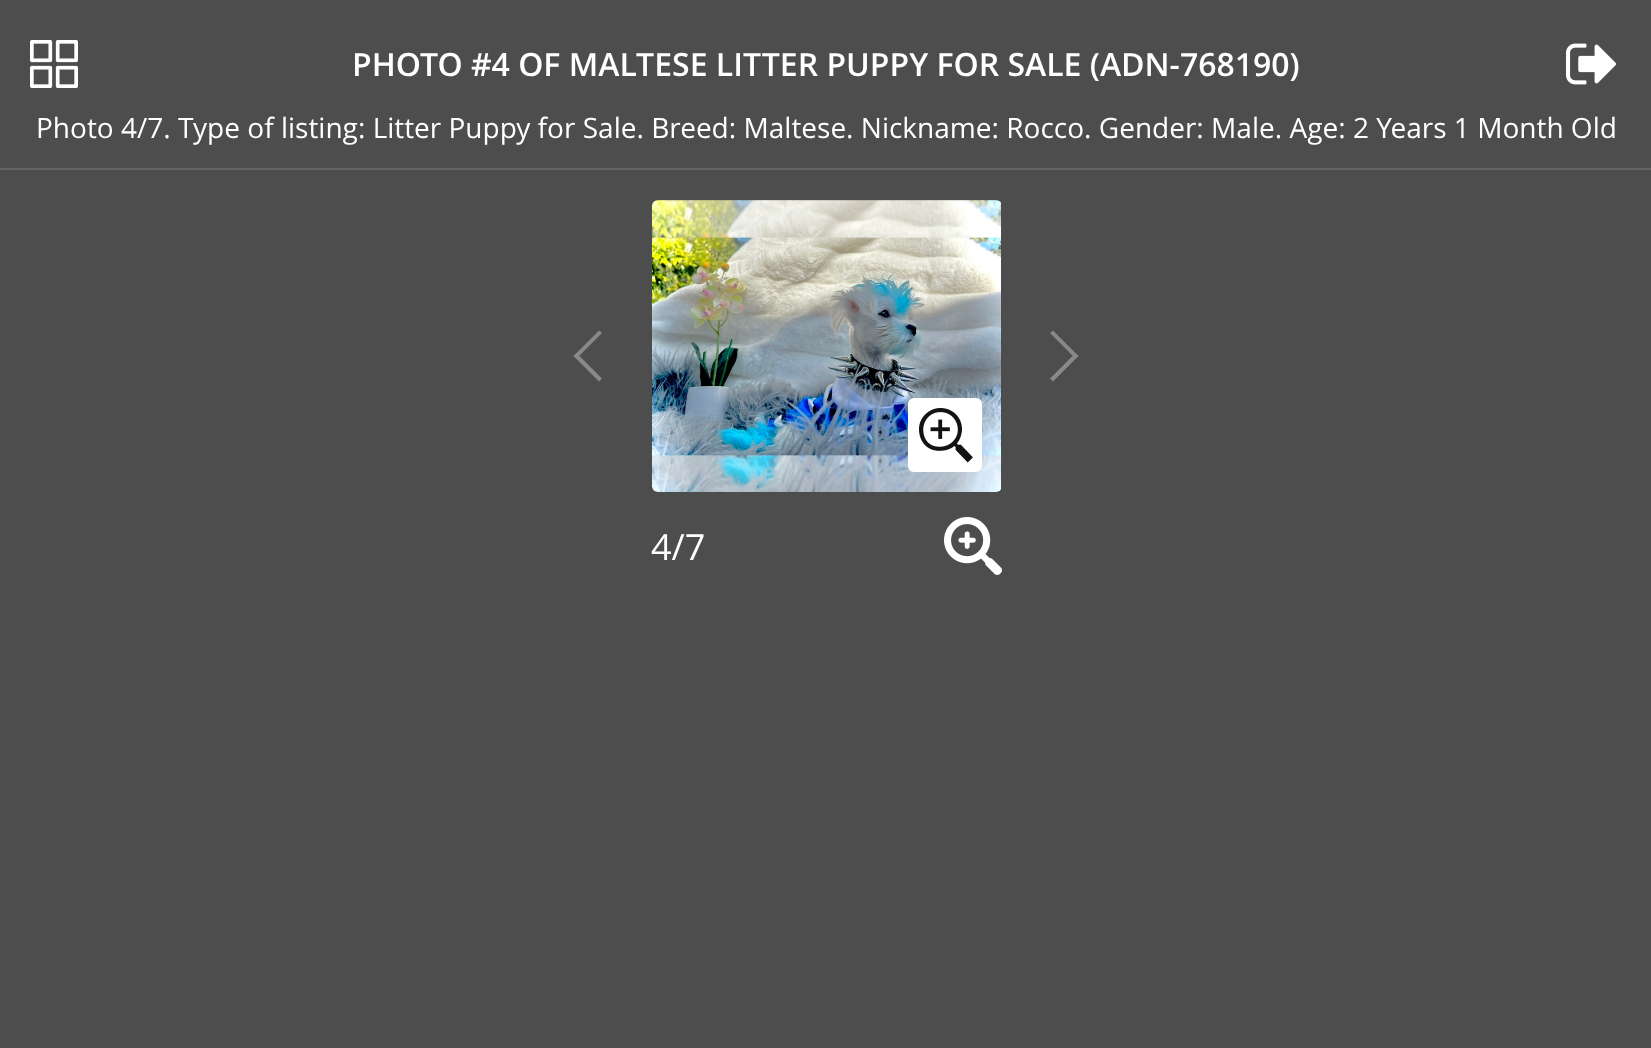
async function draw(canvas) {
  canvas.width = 1651
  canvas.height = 1048
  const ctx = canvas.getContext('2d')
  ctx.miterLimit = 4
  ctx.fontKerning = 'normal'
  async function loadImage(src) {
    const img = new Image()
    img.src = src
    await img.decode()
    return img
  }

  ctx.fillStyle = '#4d4d4d'
  ctx.fillRect(0, 0, 1651, 1048)
  ctx.fillStyle = '#636363'
  ctx.fillRect(0, 168, 1651, 2)
  ctx.drawImage(await loadImage('image0.png'), 30, 40, 48, 48)
  ctx.font = '600 32px Open Sans'
  ctx.fillStyle = '#fff'
  ctx.fillText('PHOTO #4 OF MALTESE LITTER PUPPY FOR SALE (ADN-768190)', 352, 76)
  ctx.drawImage(await loadImage('image1.png'), 1566, 43, 50, 42)
  ctx.font = '28px Open Sans'
  ctx.fillText('Photo 4/7. Type of listing: Litter Puppy for Sale. Breed: Maltese. Nickname: Rocco. Gender: Male. Age: 2 Years 1 Month Old', 36, 138)
  ctx.fillStyle = '#898989'
  ctx.beginPath()
  ctx.moveTo(599, 381.5)
  ctx.lineTo(573.5, 356)
  ctx.lineTo(576.5, 353)
  ctx.lineTo(602, 378.5)
  ctx.closePath()
  ctx.fill()
  ctx.beginPath()
  ctx.moveTo(576.5, 358.5)
  ctx.lineTo(573.5, 356)
  ctx.lineTo(599, 330.5)
  ctx.lineTo(602, 333)
  ctx.closePath()
  ctx.fill()
  ctx.drawImage(await loadImage('image2.png'), 652, 200, 349, 292)
  ctx.fillStyle = '#fff'
  ctx.beginPath()
  ctx.roundRect(908, 398, 74, 74, 6)
  ctx.fill()
  ctx.drawImage(await loadImage('image3.png'), 919, 408, 54, 55)
  ctx.fillStyle = '#898989'
  ctx.beginPath()
  ctx.moveTo(1053, 330.5)
  ctx.lineTo(1078.5, 356)
  ctx.lineTo(1075.5, 358.5)
  ctx.lineTo(1050, 333)
  ctx.closePath()
  ctx.fill()
  ctx.beginPath()
  ctx.moveTo(1075.5, 353)
  ctx.lineTo(1078.5, 356)
  ctx.lineTo(1053, 381.5)
  ctx.lineTo(1050, 378.5)
  ctx.closePath()
  ctx.fill()
  ctx.font = '36px Open Sans'
  ctx.fillStyle = '#fff'
  ctx.fillText('4/7', 651, 560)
  ctx.drawImage(await loadImage('image4.png'), 944, 517, 58, 58)
}

draw(document.querySelector('canvas'))
